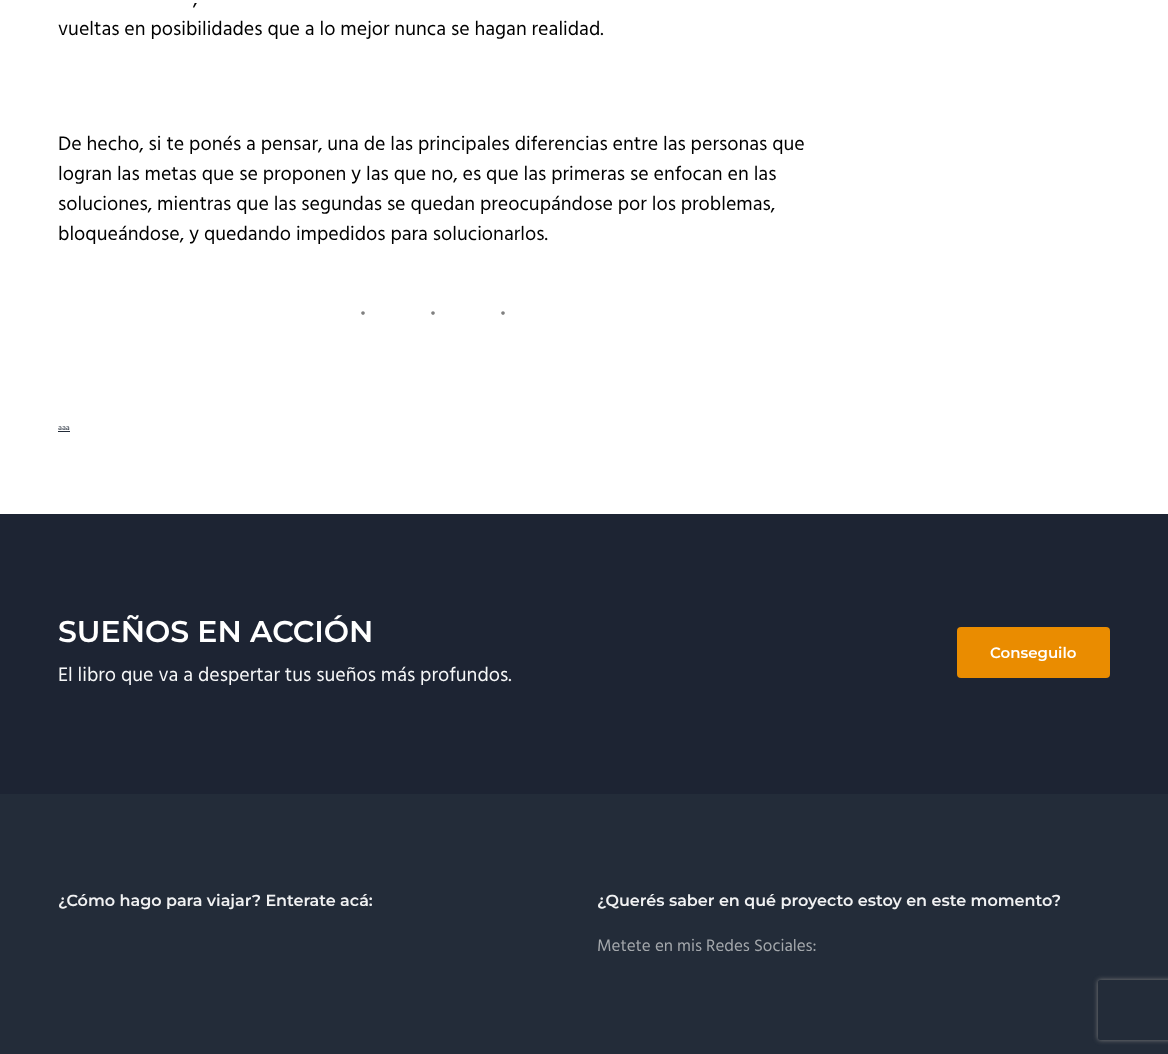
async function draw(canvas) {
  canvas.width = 1168
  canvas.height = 1054
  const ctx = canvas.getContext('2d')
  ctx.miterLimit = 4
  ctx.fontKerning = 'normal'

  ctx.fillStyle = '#fff'
  ctx.fillRect(0, 0, 1168, 1054)
  ctx.font = '20px Hind'
  ctx.fillStyle = '#000'
  ctx.fillText(',', 193, 5)
  ctx.fillText('vueltas en posibilidades que a lo mejor nunca se hagan realidad.', 58, 35)
  ctx.fillText('De hecho, si te ponés a pensar, una de las principales diferencias entre las personas que', 58, 150)
  ctx.fillText('logran las metas que se proponen y las que no, es que las primeras se enfocan en las', 58, 180)
  ctx.fillText('soluciones, mientras que las segundas se quedan preocupándose por los problemas,', 58, 210)
  ctx.fillText('bloqueándose, y quedando impedidos para solucionarlos.', 58, 240)
  ctx.letterSpacing = '60px'
  ctx.font = '30px Liberation Serif'
  ctx.fillStyle = '#808080'
  ctx.fillText('···', 358, 323)
  ctx.letterSpacing = '0px'
  ctx.font = '8px Hind'
  ctx.fillStyle = '#232c39'
  ctx.fillText('aaa', 58, 430)
  ctx.fillRect(58, 431, 12, 1)
  ctx.fillRect(0, 794, 1168, 260)
  ctx.fillStyle = '#1d2433'
  ctx.fillRect(0, 514, 1168, 280)
  ctx.font = '100 30px Montserrat'
  ctx.fillStyle = '#fff'
  ctx.fillText('SUEÑOS EN ACCIÓN', 58, 642)
  ctx.font = '20px Hind'
  ctx.fillStyle = '#f6f7f8'
  ctx.fillText('El libro que va a despertar tus sueños más profundos.', 58, 681)
  ctx.fillStyle = '#ea8c00'
  ctx.beginPath()
  ctx.roundRect(957, 627, 153, 51, 4)
  ctx.fill()
  ctx.font = '100 15px Montserrat'
  ctx.fillStyle = '#fff'
  ctx.fillText('Conseguilo', 990, 658)
  ctx.font = '100 16px Montserrat'
  ctx.fillStyle = '#f0f1f2'
  ctx.fillText('¿Cómo hago para viajar? Enterate acá:', 58, 906)
  ctx.fillText('¿Querés saber en qué proyecto estoy en este momento?', 597, 906)
  ctx.font = '17px Hind'
  ctx.fillStyle = '#a4a8ac'
  ctx.fillText('Metete en mis Redes Sociales:', 597, 951)
  ctx.save()
  ctx.beginPath()
  ctx.moveTo(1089, 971)
  ctx.lineTo(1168, 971)
  ctx.lineTo(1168, 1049)
  ctx.lineTo(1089, 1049)
  ctx.closePath()
  ctx.moveTo(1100, 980)
  ctx.lineTo(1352, 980)
  ctx.bezierCurveTo(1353, 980, 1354, 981, 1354, 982)
  ctx.lineTo(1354, 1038)
  ctx.bezierCurveTo(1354, 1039, 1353, 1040, 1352, 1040)
  ctx.lineTo(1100, 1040)
  ctx.bezierCurveTo(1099, 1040, 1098, 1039, 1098, 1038)
  ctx.lineTo(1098, 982)
  ctx.bezierCurveTo(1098, 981, 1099, 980, 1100, 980)
  ctx.closePath()
  ctx.clip('evenodd')
  ctx.fillStyle = '#808080'
  ctx.filter = 'blur(2.5px)'
  ctx.beginPath()
  ctx.roundRect(1098, 980, 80, 60, 2)
  ctx.fill()
  ctx.filter = 'none'
  ctx.restore()
}

draw(document.querySelector('canvas'))
